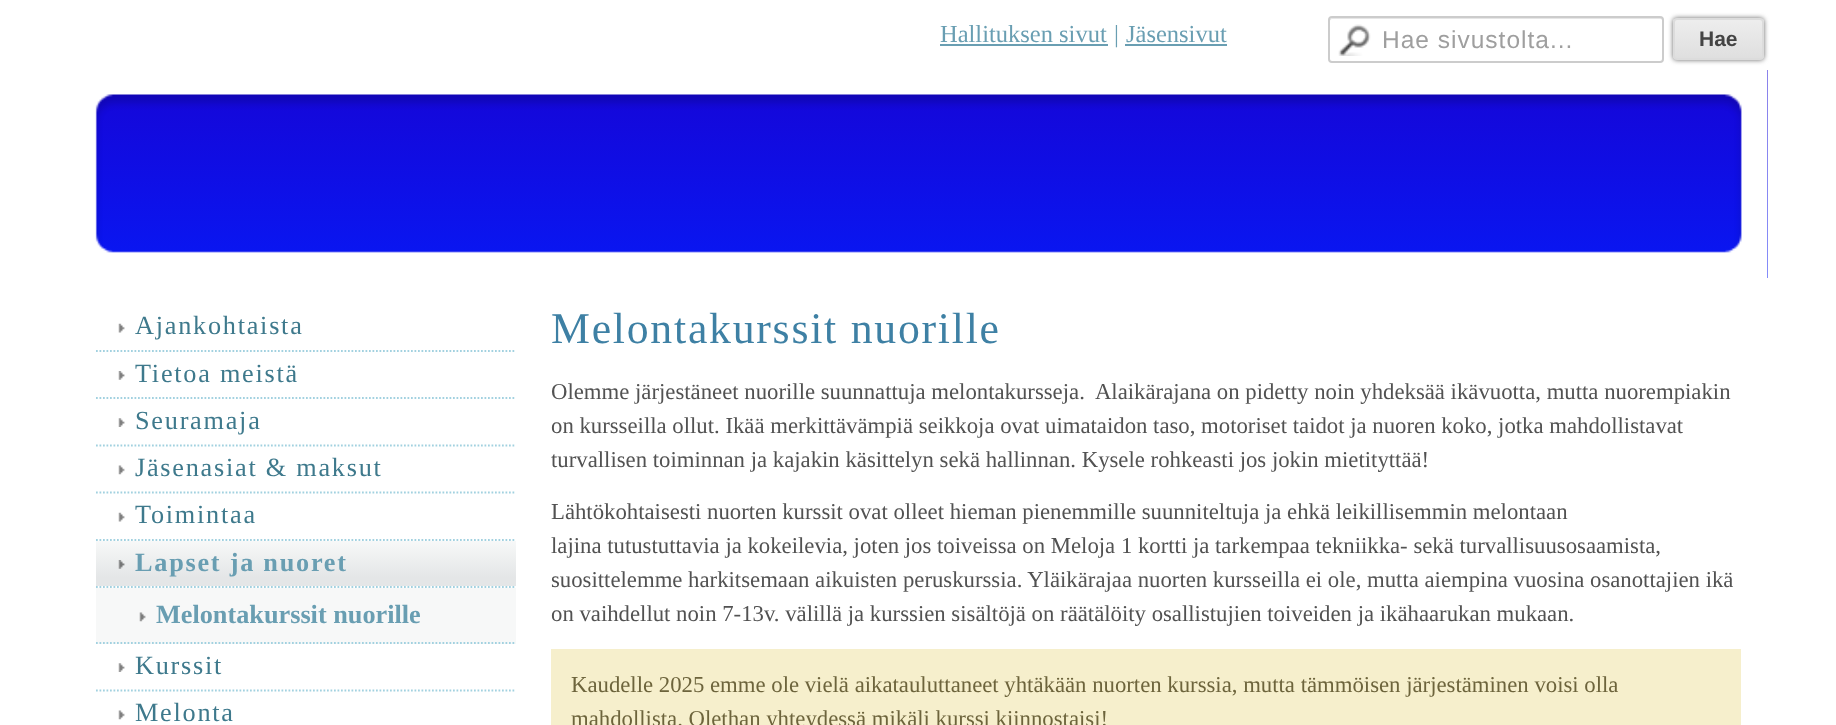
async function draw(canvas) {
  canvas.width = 1836
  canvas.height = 725
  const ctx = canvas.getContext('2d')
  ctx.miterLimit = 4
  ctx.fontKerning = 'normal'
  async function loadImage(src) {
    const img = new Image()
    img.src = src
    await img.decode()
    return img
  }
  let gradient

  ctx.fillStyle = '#fff'
  ctx.fillRect(0, 0, 1836, 725)
  ctx.font = '24.5px Liberation Serif'
  ctx.fillStyle = '#699eb2'
  ctx.fillText('Hallituksen sivut', 940, 42)
  ctx.fillRect(940, 44, 168, 2)
  ctx.fillText('|', 1114, 42)
  ctx.fillText('Jäsensivut', 1126, 42)
  ctx.fillRect(1125, 44, 102, 2)
  ctx.drawImage(await loadImage('image0.png'), 1338, 24, 33, 32)
  ctx.fillStyle = '#e6e6e6'
  ctx.beginPath()
  ctx.moveTo(1332, 19)
  ctx.lineTo(1661, 19)
  ctx.bezierCurveTo(1662, 19, 1662, 20, 1662, 21)
  ctx.lineTo(1662, 61)
  ctx.lineTo(1663, 60)
  ctx.lineTo(1663, 20)
  ctx.lineTo(1662, 18)
  ctx.lineTo(1332, 18)
  ctx.lineTo(1330, 19)
  ctx.lineTo(1330, 21)
  ctx.bezierCurveTo(1330, 20, 1331, 19, 1332, 19)
  ctx.closePath()
  ctx.fill()
  ctx.beginPath()
  ctx.roundRect(1329, 17, 334, 45, 3)
  ctx.strokeStyle = '#ccc'
  ctx.lineWidth = 2
  ctx.stroke()
  ctx.letterSpacing = '1px'
  ctx.font = '24.5px Liberation Sans'
  ctx.fillStyle = '#9f9f9f'
  ctx.fillText('Hae sivustolta...', 1382, 48)
  ctx.fillStyle = '#666'
  ctx.filter = 'blur(2.5px)'
  ctx.beginPath()
  ctx.roundRect(1673, 18, 91, 42, 4)
  ctx.fill()
  ctx.filter = 'none'
  ctx.save()
  ctx.beginPath()
  ctx.roundRect(1673, 18, 91, 42, 4)
  ctx.clip()
  gradient = ctx.createLinearGradient(1675, 19, 1675, 58)
  gradient.addColorStop(0.05, '#ededed')
  gradient.addColorStop(1, '#dfdfdf')
  ctx.fillStyle = gradient
  ctx.fillRect(1673, 19, 91, 39)
  ctx.restore()
  ctx.beginPath()
  ctx.roundRect(1674, 19, 89, 40, 3)
  ctx.strokeStyle = '#dcdcdc'
  ctx.stroke()
  ctx.letterSpacing = '0px'
  ctx.font = 'bold 21px Liberation Sans'
  ctx.fillStyle = '#444'
  ctx.fillText('Hae', 1699, 46)
  gradient = ctx.createLinearGradient(919, 70, 919, 278)
  gradient.addColorStop(0, '#1605d6')
  gradient.addColorStop(1, '#0818f4')
  gradient.addColorStop(1, '#0818f4')
  ctx.fillStyle = gradient
  ctx.fillRect(95, 70, 1673, 208)
  ctx.drawImage(await loadImage('image1.png'), 70, 70, 1698, 208)
  ctx.beginPath()
  ctx.moveTo(96, 351)
  ctx.lineTo(516, 351)
  ctx.strokeStyle = '#a2d1e0'
  ctx.lineWidth = 1.8
  ctx.setLineDash([1.75, 1.75])
  ctx.stroke()
  ctx.drawImage(await loadImage('image2.png'), 118, 323, 7, 10)
  ctx.letterSpacing = '1.75px'
  ctx.font = '26.25px Liberation Serif'
  ctx.fillStyle = '#3e798c'
  ctx.fillText('Ajankohtaista', 135, 334)
  ctx.beginPath()
  ctx.moveTo(96, 398)
  ctx.lineTo(516, 398)
  ctx.stroke()
  ctx.drawImage(await loadImage('image3.png'), 118, 371, 7, 9)
  ctx.fillText('Tietoa meistä', 135, 382)
  ctx.beginPath()
  ctx.moveTo(96, 445.5)
  ctx.lineTo(516, 445.5)
  ctx.stroke()
  ctx.drawImage(await loadImage('image4.png'), 118, 418, 7, 9)
  ctx.fillText('Seuramaja', 135, 429)
  ctx.beginPath()
  ctx.moveTo(96, 492.5)
  ctx.lineTo(516, 492.5)
  ctx.stroke()
  ctx.drawImage(await loadImage('image5.png'), 118, 465, 7, 10)
  ctx.fillText('Jäsenasiat & maksut', 135, 476)
  ctx.beginPath()
  ctx.moveTo(96, 540)
  ctx.lineTo(516, 540)
  ctx.stroke()
  ctx.drawImage(await loadImage('image2.png'), 118, 512, 7, 10)
  ctx.fillText('Toimintaa', 135, 523)
  gradient = ctx.createLinearGradient(306, 541, 306, 586)
  gradient.addColorStop(0, '#f7f8f8')
  gradient.addColorStop(0.81, '#e4e6e7')
  gradient.addColorStop(1, '#e4e6e7')
  ctx.fillStyle = gradient
  ctx.fillRect(96, 541, 420, 45)
  ctx.beginPath()
  ctx.moveTo(96, 587)
  ctx.lineTo(516, 587)
  ctx.stroke()
  ctx.drawImage(await loadImage('image6.png'), 118, 560, 7, 9)
  ctx.font = 'bold 26.25px Liberation Serif'
  ctx.fillStyle = '#699eb2'
  ctx.fillText('Lapset ja nuoret', 135, 571)
  ctx.fillStyle = '#f7f8f8'
  ctx.fillRect(96, 588, 420, 56)
  ctx.beginPath()
  ctx.moveTo(96, 643)
  ctx.lineTo(516, 643)
  ctx.stroke()
  ctx.drawImage(await loadImage('image7.png'), 139, 612, 7, 10)
  ctx.letterSpacing = '0px'
  ctx.fillStyle = '#699eb2'
  ctx.fillText('Melontakurssit nuorille', 156, 623)
  ctx.beginPath()
  ctx.moveTo(96, 690.5)
  ctx.lineTo(516, 690.5)
  ctx.stroke()
  ctx.drawImage(await loadImage('image4.png'), 118, 663, 7, 9)
  ctx.letterSpacing = '1.75px'
  ctx.font = '26.25px Liberation Serif'
  ctx.fillStyle = '#3e798c'
  ctx.fillText('Kurssit', 135, 674)
  ctx.drawImage(await loadImage('image5.png'), 118, 710, 7, 10)
  ctx.fillText('Melonta', 135, 721)
  ctx.font = '43.75px Liberation Serif'
  ctx.fillStyle = '#3e80a4'
  ctx.fillText('Melontakurssit nuorille', 551, 343)
  ctx.letterSpacing = '0px'
  ctx.font = '22.75px Liberation Serif'
  ctx.fillStyle = '#525252'
  ctx.fillText('Olemme järjestäneet nuorille suunnattuja melontakursseja.  Alaikärajana on pidetty noin yhdeksää ikävuotta, mutta nuorempiakin', 551, 399)
  ctx.fillText('on kursseilla ollut. Ikää merkittävämpiä seikkoja ovat uimataidon taso, motoriset taidot ja nuoren koko, jotka mahdollistavat', 551, 433)
  ctx.fillText('turvallisen toiminnan ja kajakin käsittelyn sekä hallinnan. Kysele rohkeasti jos jokin mietityttää!', 551, 467)
  ctx.fillText('Lähtökohtaisesti nuorten kurssit ovat olleet hieman pienemmille suunniteltuja ja ehkä leikillisemmin melontaan', 551, 519)
  ctx.fillText('lajina tutustuttavia ja kokeilevia, joten jos toiveissa on Meloja 1 kortti ja tarkempaa tekniikka- sekä turvallisuusosaamista,', 551, 553)
  ctx.fillText('suosittelemme harkitsemaan aikuisten peruskurssia. Yläikärajaa nuorten kursseilla ei ole, mutta aiempina vuosina osanottajien ikä', 551, 587)
  ctx.fillText('on vaihdellut noin 7-13v. välillä ja kurssien sisältöjä on räätälöity osallistujien toiveiden ja ikähaarukan mukaan.', 551, 621)
  ctx.fillStyle = '#f6efcc'
  ctx.fillRect(551, 649, 1190, 76)
  ctx.fillStyle = '#6d643c'
  ctx.fillText('Kaudelle 2025 emme ole vielä aikatauluttaneet yhtäkään nuorten kurssia, mutta tämmöisen järjestäminen voisi olla', 571, 692)
  ctx.fillText('mahdollista. Olethan yhteydessä mikäli kurssi kiinnostaisi!', 571, 726)
}

draw(document.querySelector('canvas'))
